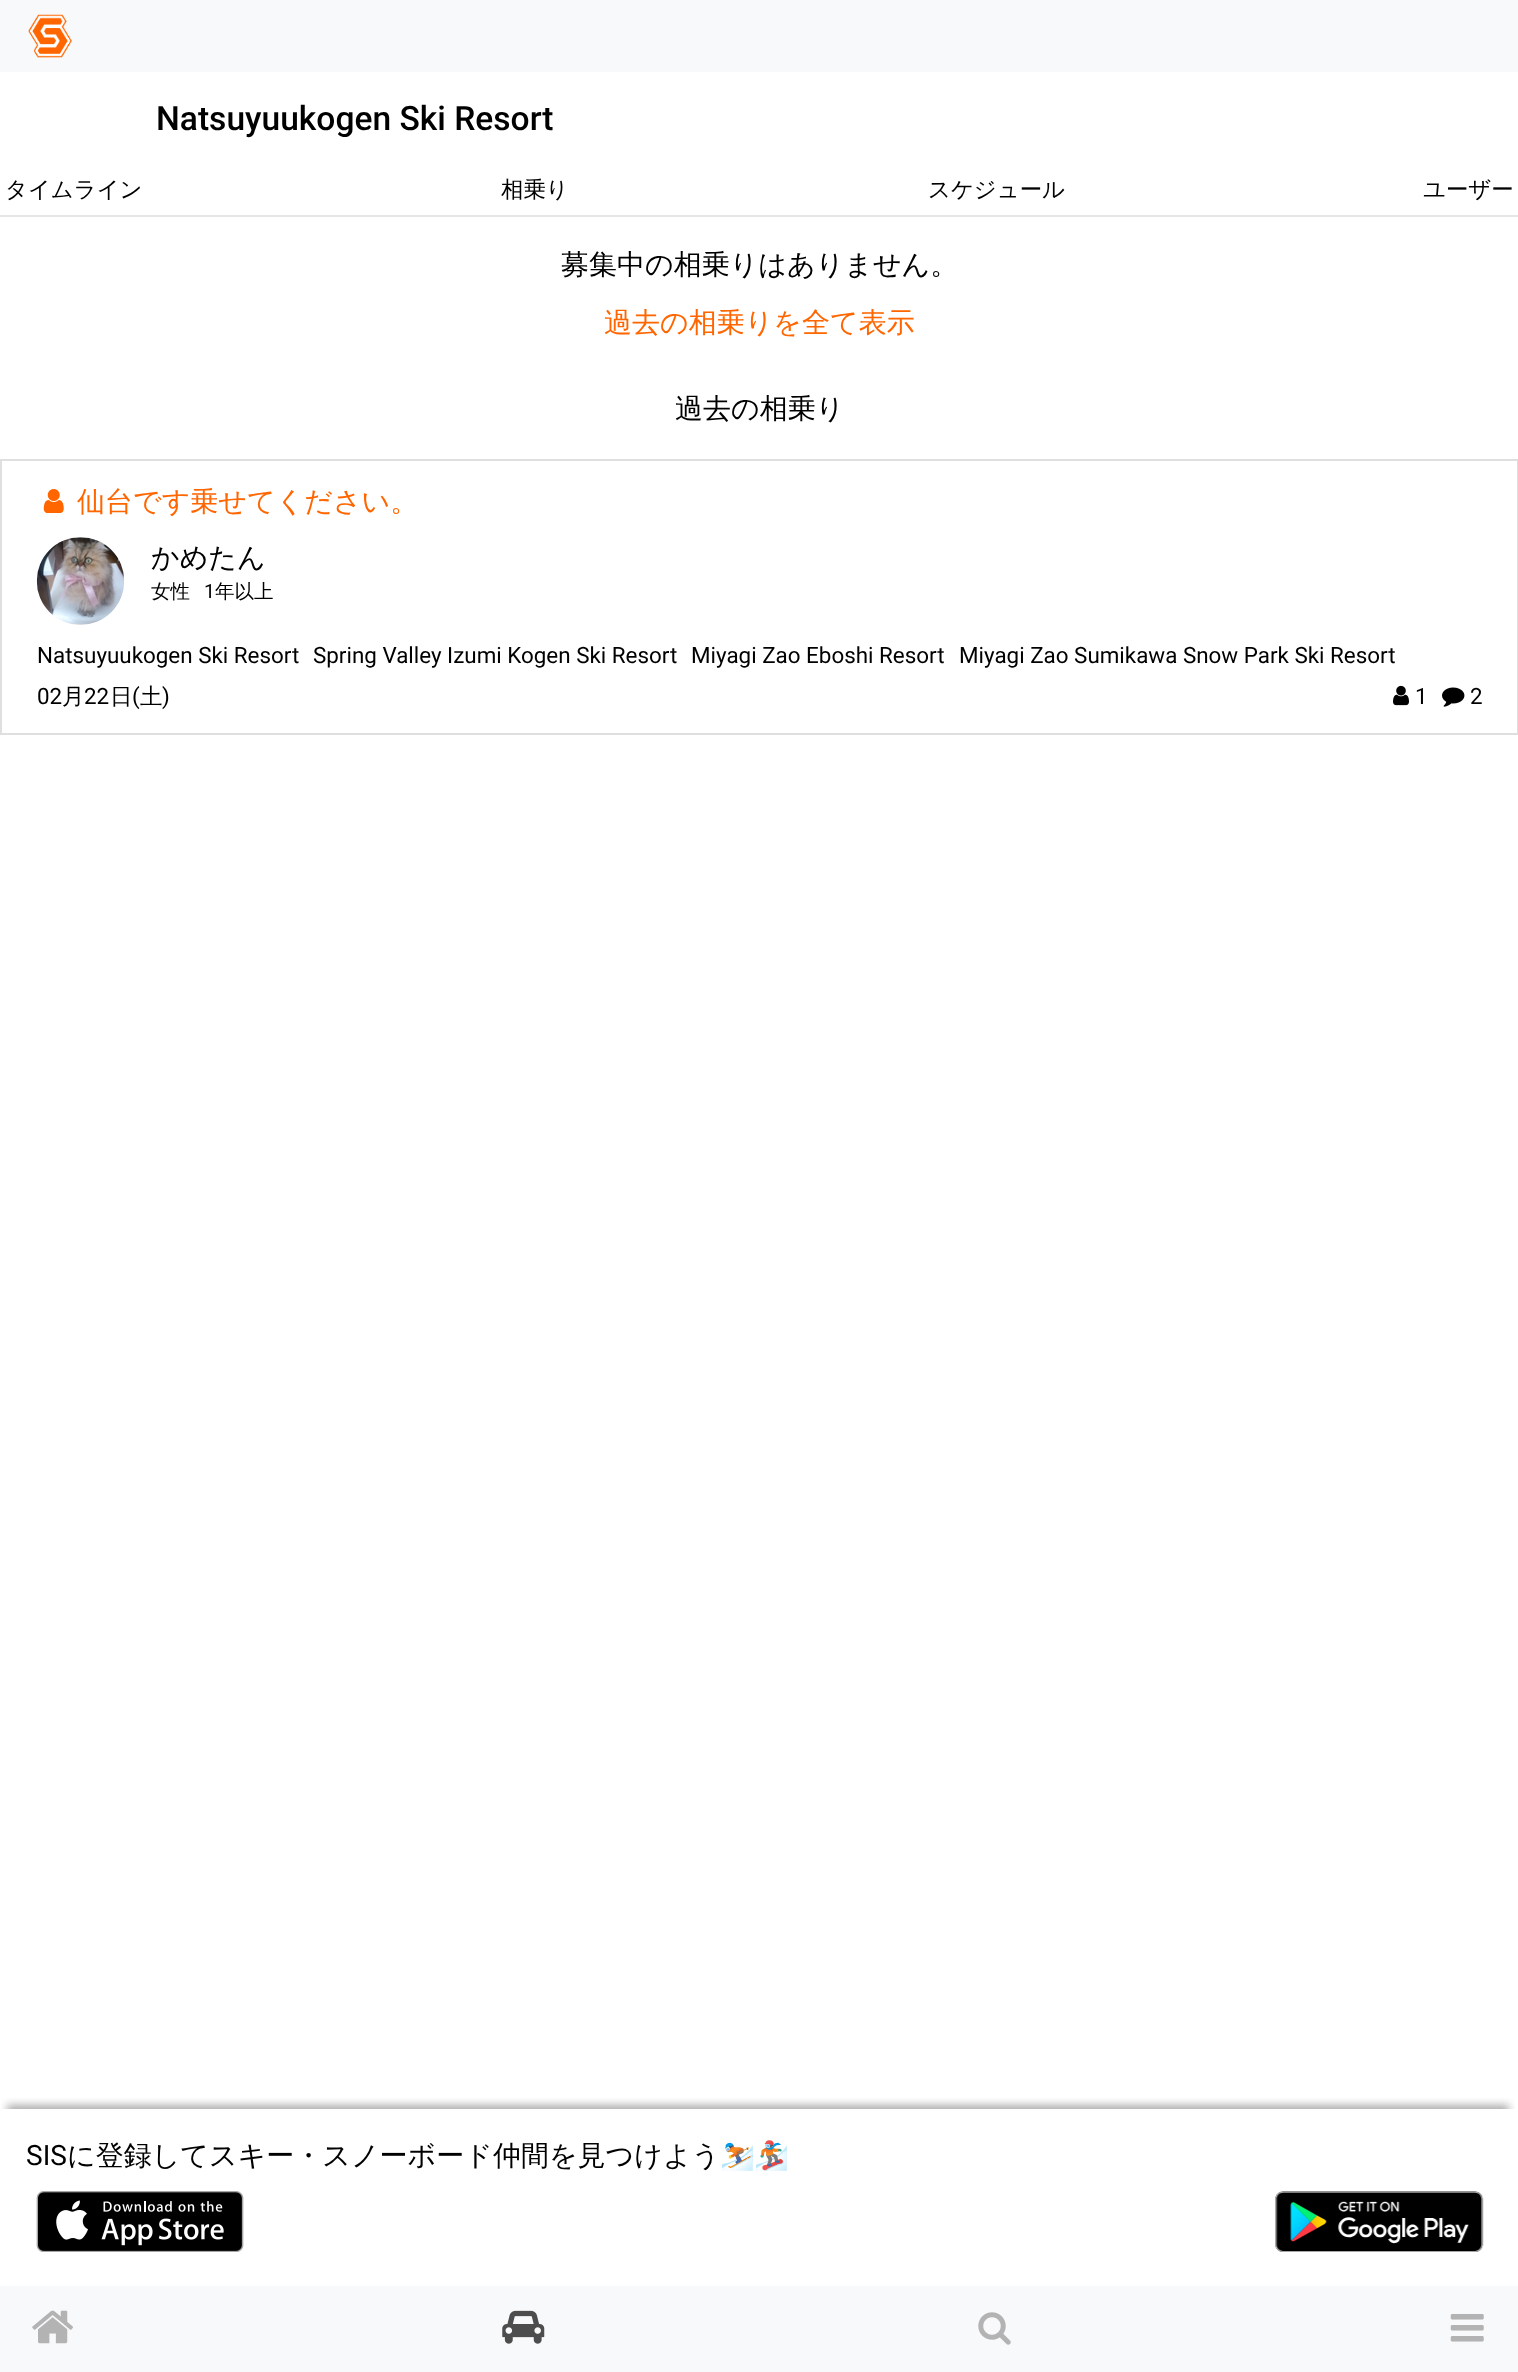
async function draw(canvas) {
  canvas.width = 1518
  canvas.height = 2372
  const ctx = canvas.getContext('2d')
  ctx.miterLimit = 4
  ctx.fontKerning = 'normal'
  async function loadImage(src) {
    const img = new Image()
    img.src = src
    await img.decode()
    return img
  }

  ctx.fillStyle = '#fff'
  ctx.fillRect(0, 0, 1518, 2372)
  ctx.fillStyle = '#f8f9fa'
  ctx.fillRect(0, 0, 1518, 72)
  ctx.drawImage(await loadImage('image0.png'), 28, 14, 44, 44)
  ctx.font = '500 33.6px Roboto'
  ctx.fillStyle = '#000'
  ctx.fillText('Natsuyuukogen Ski Resort', 156, 130)
  ctx.fillStyle = '#e6e6e6'
  ctx.fillRect(0, 215, 1518, 2)
  ctx.font = '500 22.4px WenQuanYi Zen Hei'
  ctx.fillStyle = '#000'
  ctx.fillText('タイムライン', 5, 197)
  ctx.fillText('相乗り', 501, 197)
  ctx.fillText('スケジュール', 928, 197)
  ctx.fillText('ユーザー', 1423, 197)
  ctx.font = '500 28px WenQuanYi Zen Hei'
  ctx.fillText('募集中の相乗りはありません。', 561, 274)
  ctx.fillStyle = '#f60'
  ctx.fillText('過去の相乗りを全て表示', 604, 332)
  ctx.fillStyle = '#000'
  ctx.fillText('過去の相乗り', 675, 418)
  ctx.strokeStyle = '#dfdfdf'
  ctx.lineWidth = 2
  ctx.strokeRect(1, 460, 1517, 274)
  ctx.drawImage(await loadImage('image1.png'), 43, 489, 21, 24)
  ctx.fillStyle = '#f60'
  ctx.fillText('仙台です乗せてください。', 77, 511)
  ctx.fillStyle = '#f0f0f0'
  ctx.beginPath()
  ctx.roundRect(37, 537, 87, 88, 43.5)
  ctx.fill()
  ctx.drawImage(await loadImage('image2.png'), 36, 537, 88, 88)
  ctx.fillStyle = '#000'
  ctx.fillText('かめたん', 151, 567)
  ctx.font = '500 19.5px WenQuanYi Zen Hei'
  ctx.fillText('女性', 151, 598)
  ctx.font = '19.5px Roboto'
  ctx.fillText('1', 204, 598)
  ctx.font = '500 19.5px WenQuanYi Zen Hei'
  ctx.fillText('年以上', 215, 598)
  ctx.font = '22.4px Roboto'
  ctx.fillText('Natsuyuukogen Ski Resort', 37, 663)
  ctx.fillText('Spring Valley Izumi Kogen Ski Resort', 313, 663)
  ctx.fillText('Miyagi Zao Eboshi Resort', 691, 663)
  ctx.fillText('Miyagi Zao Sumikawa Snow Park Ski Resort', 959, 663)
  ctx.fillText('02', 37, 704)
  ctx.font = '500 22.4px WenQuanYi Zen Hei'
  ctx.fillText('月', 62, 704)
  ctx.font = '22.4px Roboto'
  ctx.fillText('22', 84, 704)
  ctx.font = '500 22.4px WenQuanYi Zen Hei'
  ctx.fillText('日', 110, 704)
  ctx.font = '22.4px Roboto'
  ctx.fillText('(', 132, 704)
  ctx.font = '500 22.4px WenQuanYi Zen Hei'
  ctx.fillText('土', 140, 704)
  ctx.font = '22.4px Roboto'
  ctx.fillText(')', 162, 704)
  ctx.drawImage(await loadImage('image3.png'), 1393, 685, 16, 21)
  ctx.fillText('1', 1415, 704)
  ctx.drawImage(await loadImage('image4.png'), 1442, 687, 23, 20)
  ctx.fillText('2', 1470, 704)
  ctx.save()
  ctx.beginPath()
  ctx.rect(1, 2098, 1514, 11)
  ctx.clip()
  ctx.fillStyle = '#00000054'
  ctx.filter = 'blur(4.5px)'
  ctx.beginPath()
  ctx.rect(7, 2105, 1502, 167)
  ctx.fill()
  ctx.filter = 'none'
  ctx.restore()
  ctx.font = '28px Roboto'
  ctx.fillText('SIS', 26, 2165)
  ctx.font = '500 28px WenQuanYi Zen Hei'
  ctx.fillText('に登録してスキー・スノーボード仲間を見つけよう', 67, 2165)
  ctx.font = '28px Noto Color Emoji'
  ctx.fillText('⛷️🏂', 720, 2165)
  ctx.drawImage(await loadImage('image5.png'), 36, 2191, 208, 61)
  ctx.drawImage(await loadImage('image6.png'), 1275, 2191, 209, 61)
  ctx.fillStyle = '#f8f9fa'
  ctx.fillRect(0, 2286, 1518, 86)
  ctx.drawImage(await loadImage('image7.png'), 32, 2310, 41, 34)
  ctx.drawImage(await loadImage('image8.png'), 502, 2310, 43, 34)
  ctx.drawImage(await loadImage('image9.png'), 978, 2312, 33, 33)
  ctx.drawImage(await loadImage('image10.png'), 1450, 2314, 34, 28)
}

draw(document.querySelector('canvas'))
